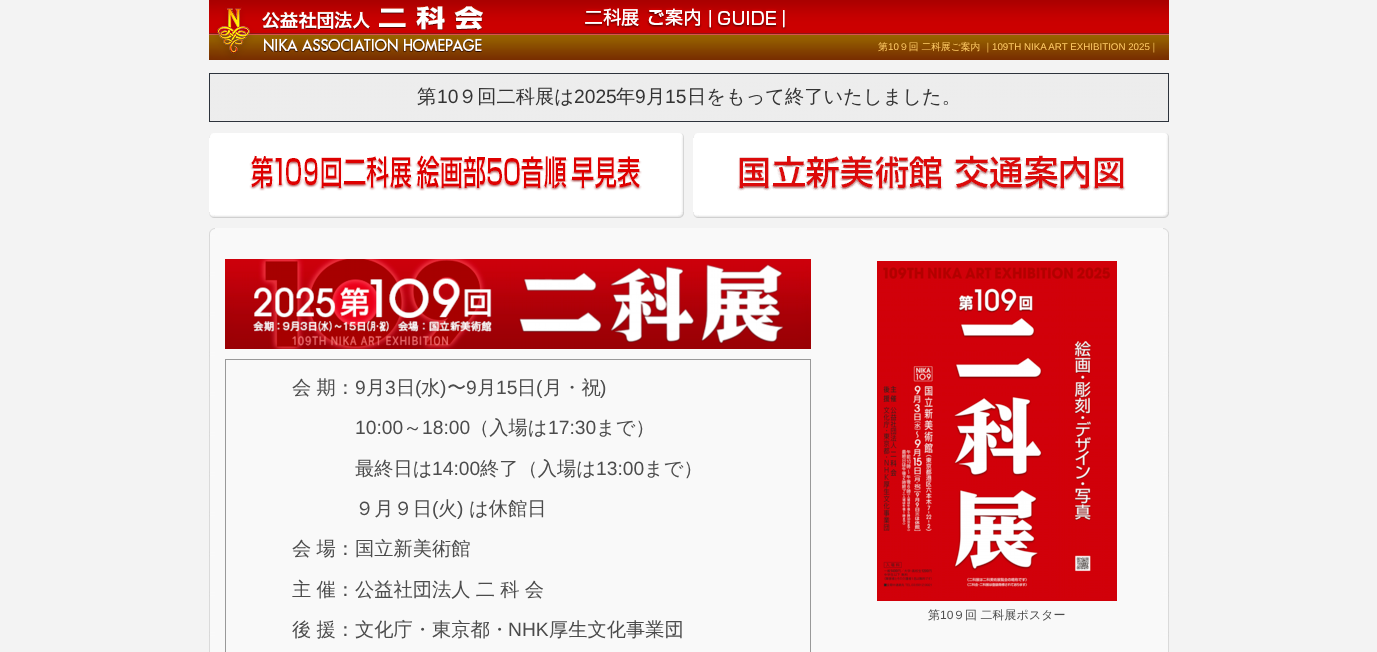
async function draw(canvas) {
  canvas.width = 1377
  canvas.height = 652
  const ctx = canvas.getContext('2d')
  ctx.miterLimit = 4
  ctx.fontKerning = 'normal'
  async function loadImage(src) {
    const img = new Image()
    img.src = src
    await img.decode()
    return img
  }

  ctx.fillStyle = '#f3f3f3'
  ctx.fillRect(0, 0, 1377, 652)
  ctx.drawImage(await loadImage('image0.png'), 209, 0, 960, 60)
  ctx.font = '500 9.75px WenQuanYi Zen Hei'
  ctx.fillStyle = '#fc6'
  ctx.fillText('第', 878, 50)
  ctx.font = '9.75px Liberation Sans'
  ctx.fillText('10', 888, 50)
  ctx.font = '500 9.75px WenQuanYi Zen Hei'
  ctx.fillText('９回 二科展ご案内 ｜', 899, 50)
  ctx.font = '9.75px Liberation Sans'
  ctx.fillText('109TH NIKA ART EXHIBITION 2025', 992, 50)
  ctx.font = '500 9.75px WenQuanYi Zen Hei'
  ctx.fillText('｜', 1149, 50)
  ctx.fillStyle = '#2d333c'
  ctx.fillRect(209, 73, 960, 1)
  ctx.fillRect(1168, 73, 1, 49)
  ctx.fillRect(209, 121, 960, 1)
  ctx.fillRect(209, 73, 1, 49)
  ctx.drawImage(await loadImage('image1.png'), 210, 74, 958, 47)
  ctx.font = '500 19.25px WenQuanYi Zen Hei'
  ctx.fillStyle = '#333'
  ctx.fillText('第', 417, 103)
  ctx.font = '19.25px Liberation Sans'
  ctx.fillText('10', 437, 103)
  ctx.font = '500 19.25px WenQuanYi Zen Hei'
  ctx.fillText('９回二科展は', 458, 103)
  ctx.font = '19.25px Liberation Sans'
  ctx.fillText('2025', 574, 103)
  ctx.font = '500 19.25px WenQuanYi Zen Hei'
  ctx.fillText('年', 616, 103)
  ctx.font = '19.25px Liberation Sans'
  ctx.fillText('9', 635, 103)
  ctx.font = '500 19.25px WenQuanYi Zen Hei'
  ctx.fillText('月', 646, 103)
  ctx.font = '19.25px Liberation Sans'
  ctx.fillText('15', 665, 103)
  ctx.font = '500 19.25px WenQuanYi Zen Hei'
  ctx.fillText('日をもって終了いたしました。', 687, 103)
  ctx.drawImage(await loadImage('image2.png'), 209, 133, 6, 5)
  ctx.fillStyle = '#fff'
  ctx.fillRect(215, 133, 463, 5)
  ctx.drawImage(await loadImage('image3.png'), 678, 133, 6, 5)
  ctx.drawImage(await loadImage('image2.png'), 693, 133, 6, 5)
  ctx.fillRect(699, 133, 464, 5)
  ctx.drawImage(await loadImage('image3.png'), 1163, 133, 6, 5)
  ctx.fillRect(209, 138, 469, 74)
  ctx.drawImage(await loadImage('image4.png'), 678, 138, 6, 74)
  ctx.fillRect(693, 138, 470, 74)
  ctx.drawImage(await loadImage('image4.png'), 1163, 138, 6, 74)
  ctx.drawImage(await loadImage('image5.png'), 249, 155, 393, 36)
  ctx.drawImage(await loadImage('image6.png'), 737, 155, 389, 36)
  ctx.drawImage(await loadImage('image7.png'), 209, 212, 6, 6)
  ctx.drawImage(await loadImage('image8.png'), 215, 212, 463, 6)
  ctx.drawImage(await loadImage('image9.png'), 678, 212, 6, 6)
  ctx.drawImage(await loadImage('image7.png'), 693, 212, 6, 6)
  ctx.drawImage(await loadImage('image10.png'), 699, 212, 464, 6)
  ctx.drawImage(await loadImage('image9.png'), 1163, 212, 6, 6)
  ctx.drawImage(await loadImage('image11.png'), 209, 228, 6, 6)
  ctx.fillStyle = '#f9f9f9'
  ctx.fillRect(215, 228, 948, 424)
  ctx.drawImage(await loadImage('image12.png'), 1163, 228, 6, 6)
  ctx.drawImage(await loadImage('image13.png'), 209, 234, 6, 418)
  ctx.drawImage(await loadImage('image14.png'), 225, 259, 586, 90)
  ctx.strokeStyle = '#999'
  ctx.strokeRect(225.5, 359.5, 585, 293)
  ctx.wordSpacing = '-0.5px'
  ctx.fillStyle = '#4c4c4c'
  ctx.fillText('会 期：', 292, 394)
  ctx.wordSpacing = '0px'
  ctx.font = '19.25px Liberation Sans'
  ctx.fillText('9', 355, 394)
  ctx.font = '500 19.25px WenQuanYi Zen Hei'
  ctx.fillText('月', 366, 394)
  ctx.font = '19.25px Liberation Sans'
  ctx.fillText('3', 385, 394)
  ctx.font = '500 19.25px WenQuanYi Zen Hei'
  ctx.fillText('日', 396, 394)
  ctx.font = '19.25px Liberation Sans'
  ctx.fillText('(', 415, 394)
  ctx.font = '500 19.25px WenQuanYi Zen Hei'
  ctx.fillText('水', 421, 394)
  ctx.font = '19.25px Liberation Sans'
  ctx.fillText(')', 440, 394)
  ctx.font = '500 19.25px WenQuanYi Zen Hei'
  ctx.fillText('〜', 447, 394)
  ctx.font = '19.25px Liberation Sans'
  ctx.fillText('9', 466, 394)
  ctx.font = '500 19.25px WenQuanYi Zen Hei'
  ctx.fillText('月', 477, 394)
  ctx.font = '19.25px Liberation Sans'
  ctx.fillText('15', 496, 394)
  ctx.font = '500 19.25px WenQuanYi Zen Hei'
  ctx.fillText('日', 517, 394)
  ctx.font = '19.25px Liberation Sans'
  ctx.fillText('(', 536, 394)
  ctx.font = '500 19.25px WenQuanYi Zen Hei'
  ctx.fillText('月・祝', 543, 394)
  ctx.font = '19.25px Liberation Sans'
  ctx.fillText(')', 600, 394)
  ctx.fillText('10:00', 355, 434)
  ctx.font = '500 19.25px WenQuanYi Zen Hei'
  ctx.fillText('～', 403, 434)
  ctx.font = '19.25px Liberation Sans'
  ctx.fillText('18:00', 422, 434)
  ctx.font = '500 19.25px WenQuanYi Zen Hei'
  ctx.fillText('（入場は', 470, 434)
  ctx.font = '19.25px Liberation Sans'
  ctx.fillText('17:30', 548, 434)
  ctx.font = '500 19.25px WenQuanYi Zen Hei'
  ctx.fillText('まで）', 596, 434)
  ctx.fillText('最終日は', 355, 475)
  ctx.font = '19.25px Liberation Sans'
  ctx.fillText('14:00', 432, 475)
  ctx.font = '500 19.25px WenQuanYi Zen Hei'
  ctx.fillText('終了（入場は', 480, 475)
  ctx.font = '19.25px Liberation Sans'
  ctx.fillText('13:00', 596, 475)
  ctx.font = '500 19.25px WenQuanYi Zen Hei'
  ctx.fillText('まで）', 644, 475)
  ctx.fillText('９月９日', 355, 515)
  ctx.font = '19.25px Liberation Sans'
  ctx.fillText('(', 432, 515)
  ctx.font = '500 19.25px WenQuanYi Zen Hei'
  ctx.fillText('火', 438, 515)
  ctx.font = '19.25px Liberation Sans'
  ctx.fillText(')', 457, 515)
  ctx.font = '500 19.25px WenQuanYi Zen Hei'
  ctx.fillText('は休館日', 469, 515)
  ctx.wordSpacing = '-0.5px'
  ctx.fillText('会 場：', 292, 555)
  ctx.wordSpacing = '0px'
  ctx.fillText('国立新美術館', 355, 555)
  ctx.wordSpacing = '-0.5px'
  ctx.fillText('主 催：公益社団法人 二 科 会', 292, 596)
  ctx.fillText('後 援：文化庁・', 292, 636)
  ctx.wordSpacing = '0px'
  ctx.fillText('東京都・', 432, 636)
  ctx.font = '19.25px Liberation Sans'
  ctx.fillText('NHK', 508, 636)
  ctx.font = '500 19.25px WenQuanYi Zen Hei'
  ctx.fillText('厚生文化事業団', 549, 636)
  ctx.drawImage(await loadImage('image15.png'), 877, 261, 240, 340)
  ctx.font = '500 12px WenQuanYi Zen Hei'
  ctx.fillText('第', 928, 619)
  ctx.font = '12px Liberation Sans'
  ctx.fillText('10', 940, 619)
  ctx.font = '500 12px WenQuanYi Zen Hei'
  ctx.fillText('９回 二科展ポスター', 953, 619)
  ctx.drawImage(await loadImage('image16.png'), 1163, 234, 6, 418)
}

draw(document.querySelector('canvas'))
